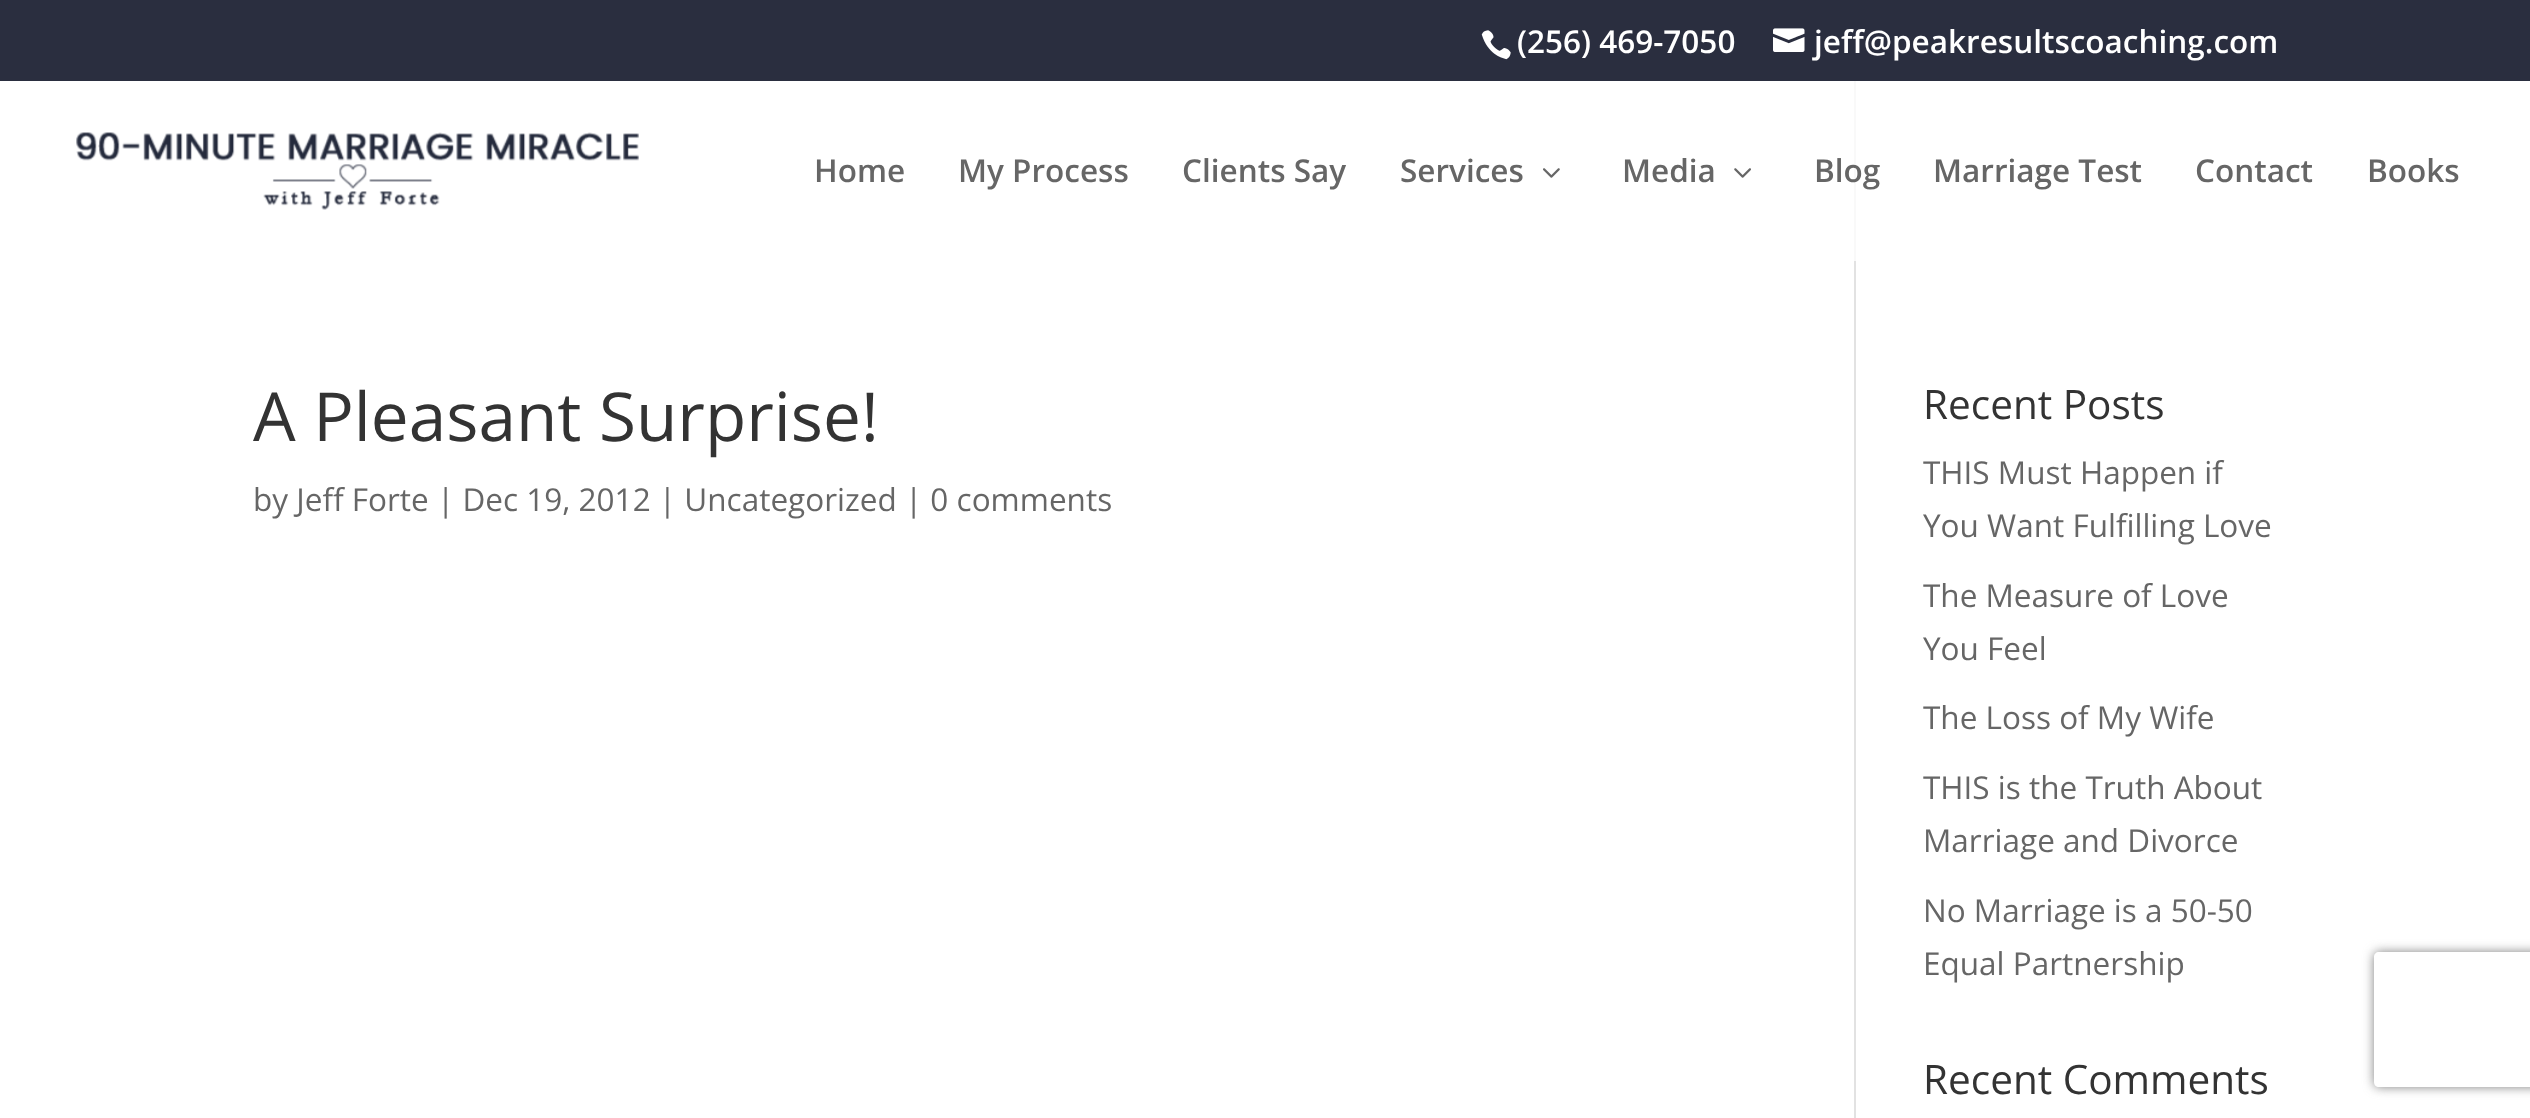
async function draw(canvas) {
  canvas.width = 2530
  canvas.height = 1118
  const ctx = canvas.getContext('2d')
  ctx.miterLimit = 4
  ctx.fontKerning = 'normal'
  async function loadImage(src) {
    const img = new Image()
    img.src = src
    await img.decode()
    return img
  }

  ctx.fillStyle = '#fff'
  ctx.fillRect(0, 0, 2530, 1118)
  ctx.fillStyle = '#2a2e3f'
  ctx.fillRect(0, 0, 2530, 81)
  ctx.drawImage(await loadImage('image0.png'), 1481, 30, 30, 30)
  ctx.font = '600 31.5px Open Sans'
  ctx.fillStyle = '#fff'
  ctx.fillText('(256) 469-7050', 1517, 53)
  ctx.drawImage(await loadImage('image1.png'), 1773, 28, 32, 24)
  ctx.fillText('jeff@peakresultscoaching.com', 1814, 53)
  ctx.drawImage(await loadImage('image2.png'), 76, 132, 563, 78)
  ctx.fillStyle = '#666'
  ctx.fillText('Home', 814, 182)
  ctx.fillText('My Process', 958, 182)
  ctx.fillText('Clients Say', 1182, 182)
  ctx.fillText('Services', 1400, 182)
  ctx.drawImage(await loadImage('image3.png'), 1543, 168, 17, 10)
  ctx.fillText('Media', 1622, 182)
  ctx.drawImage(await loadImage('image4.png'), 1734, 168, 17, 10)
  ctx.fillStyle = '#f9f9f9'
  ctx.fillRect(1854, 81, 2, 180)
  ctx.fillStyle = '#666'
  ctx.fillText('Blog', 1814, 182)
  ctx.fillText('Marriage Test', 1933, 182)
  ctx.fillText('Contact', 2195, 182)
  ctx.fillText('Books', 2367, 182)
  ctx.fillStyle = '#e2e2e2'
  ctx.fillRect(1854, 261, 2, 857)
  ctx.font = '67.5px Open Sans'
  ctx.fillStyle = '#333'
  ctx.fillText('A Pleasant Surprise!', 253, 441)
  ctx.font = '31.5px Open Sans'
  ctx.fillStyle = '#666'
  ctx.fillText('by Jeff Forte | Dec 19, 2012 | Uncategorized | 0 comments', 253, 511)
  ctx.font = '40.5px Open Sans'
  ctx.fillStyle = '#333'
  ctx.fillText('Recent Posts', 1923, 419)
  ctx.font = '31.5px Open Sans'
  ctx.fillStyle = '#666'
  ctx.fillText('THIS Must Happen if', 1923, 484)
  ctx.fillText('You Want Fulfilling Love', 1923, 537)
  ctx.fillText('The Measure of Love', 1923, 607)
  ctx.fillText('You Feel', 1923, 660)
  ctx.fillText('The Loss of My Wife', 1923, 729)
  ctx.fillText('THIS is the Truth About', 1923, 799)
  ctx.fillText('Marriage and Divorce', 1923, 852)
  ctx.fillText('No Marriage is a 50-50', 1923, 922)
  ctx.fillText('Equal Partnership', 1923, 975)
  ctx.font = '40.5px Open Sans'
  ctx.fillStyle = '#333'
  ctx.fillText('Recent Comments', 1923, 1094)
  ctx.save()
  ctx.beginPath()
  ctx.moveTo(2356, 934)
  ctx.lineTo(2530, 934)
  ctx.lineTo(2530, 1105)
  ctx.lineTo(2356, 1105)
  ctx.closePath()
  ctx.moveTo(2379, 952)
  ctx.lineTo(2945, 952)
  ctx.bezierCurveTo(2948, 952, 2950, 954, 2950, 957)
  ctx.lineTo(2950, 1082)
  ctx.bezierCurveTo(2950, 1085, 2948, 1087, 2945, 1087)
  ctx.lineTo(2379, 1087)
  ctx.bezierCurveTo(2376, 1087, 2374, 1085, 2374, 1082)
  ctx.lineTo(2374, 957)
  ctx.bezierCurveTo(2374, 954, 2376, 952, 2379, 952)
  ctx.closePath()
  ctx.clip('evenodd')
  ctx.fillStyle = '#808080'
  ctx.filter = 'blur(5.5px)'
  ctx.beginPath()
  ctx.roundRect(2374, 952, 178, 135, 5)
  ctx.fill()
  ctx.filter = 'none'
  ctx.restore()
}

draw(document.querySelector('canvas'))
